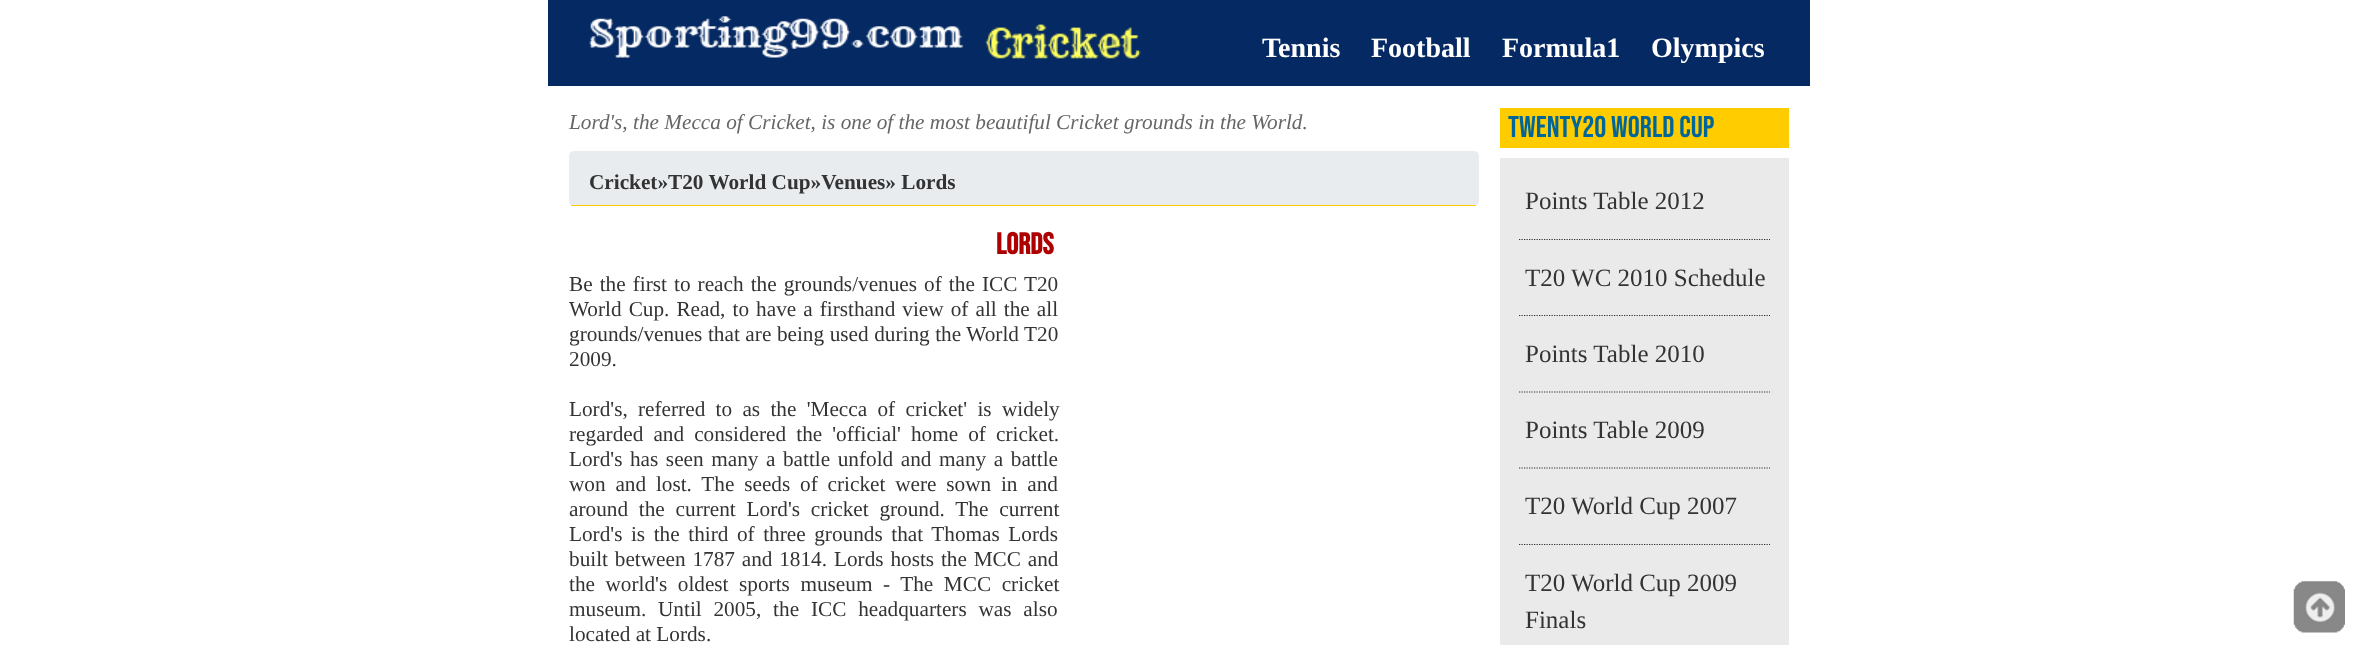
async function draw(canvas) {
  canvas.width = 2357
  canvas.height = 645
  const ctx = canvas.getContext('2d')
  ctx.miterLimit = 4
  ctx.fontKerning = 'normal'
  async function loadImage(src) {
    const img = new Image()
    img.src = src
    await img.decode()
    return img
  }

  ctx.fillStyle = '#fff'
  ctx.fillRect(0, 0, 2357, 645)
  ctx.fillStyle = '#052962'
  ctx.fillRect(548, 0, 1262, 86)
  ctx.drawImage(await loadImage('image0.png'), 589, 16, 375, 42)
  ctx.drawImage(await loadImage('image1.png'), 985, 24, 156, 35)
  ctx.font = 'bold 28px Liberation Serif'
  ctx.fillStyle = '#fff'
  ctx.fillText('Tennis', 1262, 57)
  ctx.fillText('Football', 1371, 57)
  ctx.fillText('Formula1', 1502, 57)
  ctx.fillText('Olympics', 1651, 57)
  ctx.font = 'italic 21.25px Liberation Serif'
  ctx.fillStyle = '#666'
  ctx.fillText('Lord\'s, the Mecca of Cricket, is one of the most beautiful Cricket grounds in the World.', 569, 129)
  ctx.fillStyle = '#e9ecef'
  ctx.beginPath()
  ctx.roundRect(569, 151, 910, 55, 5)
  ctx.fill()
  ctx.fillStyle = '#fc0'
  ctx.fillRect(571, 205, 905, 1)
  ctx.font = 'bold 21.25px Liberation Serif'
  ctx.fillStyle = '#333'
  ctx.fillText('Cricket»T20 World Cup»Venues» Lords', 589, 189)
  ctx.font = 'bold 30px Bebas Neue'
  ctx.fillStyle = '#ad0000'
  ctx.fillText('Lords', 996, 254)
  ctx.wordSpacing = '1.75px'
  ctx.font = '21.25px Liberation Serif'
  ctx.fillStyle = '#333'
  ctx.fillText('Be the first to reach the grounds/venues of the ICC T20', 569, 291)
  ctx.fillText('World Cup. Read, to have a firsthand view of all the all', 569, 316)
  ctx.wordSpacing = '0.25px'
  ctx.fillText('grounds/venues that are being used during the World T20', 569, 341)
  ctx.wordSpacing = '0px'
  ctx.fillText('2009.', 569, 366)
  ctx.wordSpacing = '5px'
  ctx.fillText('Lord\'s, referred to as the \'Mecca of cricket\' is widely', 569, 416)
  ctx.wordSpacing = '4.75px'
  ctx.fillText('regarded and considered the \'official\' home of cricket.', 569, 441)
  ctx.wordSpacing = '2.25px'
  ctx.fillText('Lord\'s has seen many a battle unfold and many a battle', 569, 466)
  ctx.wordSpacing = '4.5px'
  ctx.fillText('won and lost. The seeds of cricket were sown in and', 569, 491)
  ctx.wordSpacing = '5.5px'
  ctx.fillText('around the current Lord\'s cricket ground. The current', 569, 516)
  ctx.wordSpacing = '3.25px'
  ctx.fillText('Lord\'s is the third of three grounds that Thomas Lords', 569, 541)
  ctx.wordSpacing = '1.5px'
  ctx.fillText('built between 1787 and 1814.', 569, 566)
  ctx.fillText('Lords hosts the MCC and', 834, 566)
  ctx.wordSpacing = '5.25px'
  ctx.fillText('the world\'s oldest sports museum - The MCC cricket', 569, 591)
  ctx.wordSpacing = '0px'
  ctx.fillText('museum.', 569, 616)
  ctx.wordSpacing = '6.5px'
  ctx.fillText('Until 2005, the ICC headquarters was also', 658, 616)
  ctx.wordSpacing = '0px'
  ctx.fillText('located at Lords.', 569, 641)
  ctx.fillStyle = '#fc0'
  ctx.fillRect(1500, 108, 289, 40)
  ctx.font = '30px Bebas Neue'
  ctx.fillStyle = '#069'
  ctx.fillText('Twenty20 World Cup', 1508, 137)
  ctx.fillStyle = '#eaeaea'
  ctx.fillRect(1500, 158, 289, 487)
  ctx.beginPath()
  ctx.moveTo(1519, 239.5)
  ctx.lineTo(1770, 239.5)
  ctx.strokeStyle = '#333'
  ctx.lineWidth = 1.2
  ctx.setLineDash([1.25, 1.25])
  ctx.stroke()
  ctx.font = '25px Liberation Serif'
  ctx.fillStyle = '#333'
  ctx.fillText('Points Table 2012', 1525, 209)
  ctx.beginPath()
  ctx.moveTo(1519, 315.5)
  ctx.lineTo(1770, 315.5)
  ctx.stroke()
  ctx.fillText('T20 WC 2010 Schedule', 1525, 286)
  ctx.beginPath()
  ctx.moveTo(1519, 392)
  ctx.lineTo(1770, 392)
  ctx.stroke()
  ctx.fillText('Points Table 2010', 1525, 362)
  ctx.beginPath()
  ctx.moveTo(1519, 468)
  ctx.lineTo(1770, 468)
  ctx.stroke()
  ctx.fillText('Points Table 2009', 1525, 438)
  ctx.beginPath()
  ctx.moveTo(1519, 544.5)
  ctx.lineTo(1770, 544.5)
  ctx.stroke()
  ctx.fillText('T20 World Cup 2007', 1525, 514)
  ctx.fillText('T20 World Cup 2009', 1525, 591)
  ctx.fillText('Finals', 1525, 628)
  ctx.drawImage(await loadImage('image2.png'), 2293, 581, 52, 52)
}

draw(document.querySelector('canvas'))
